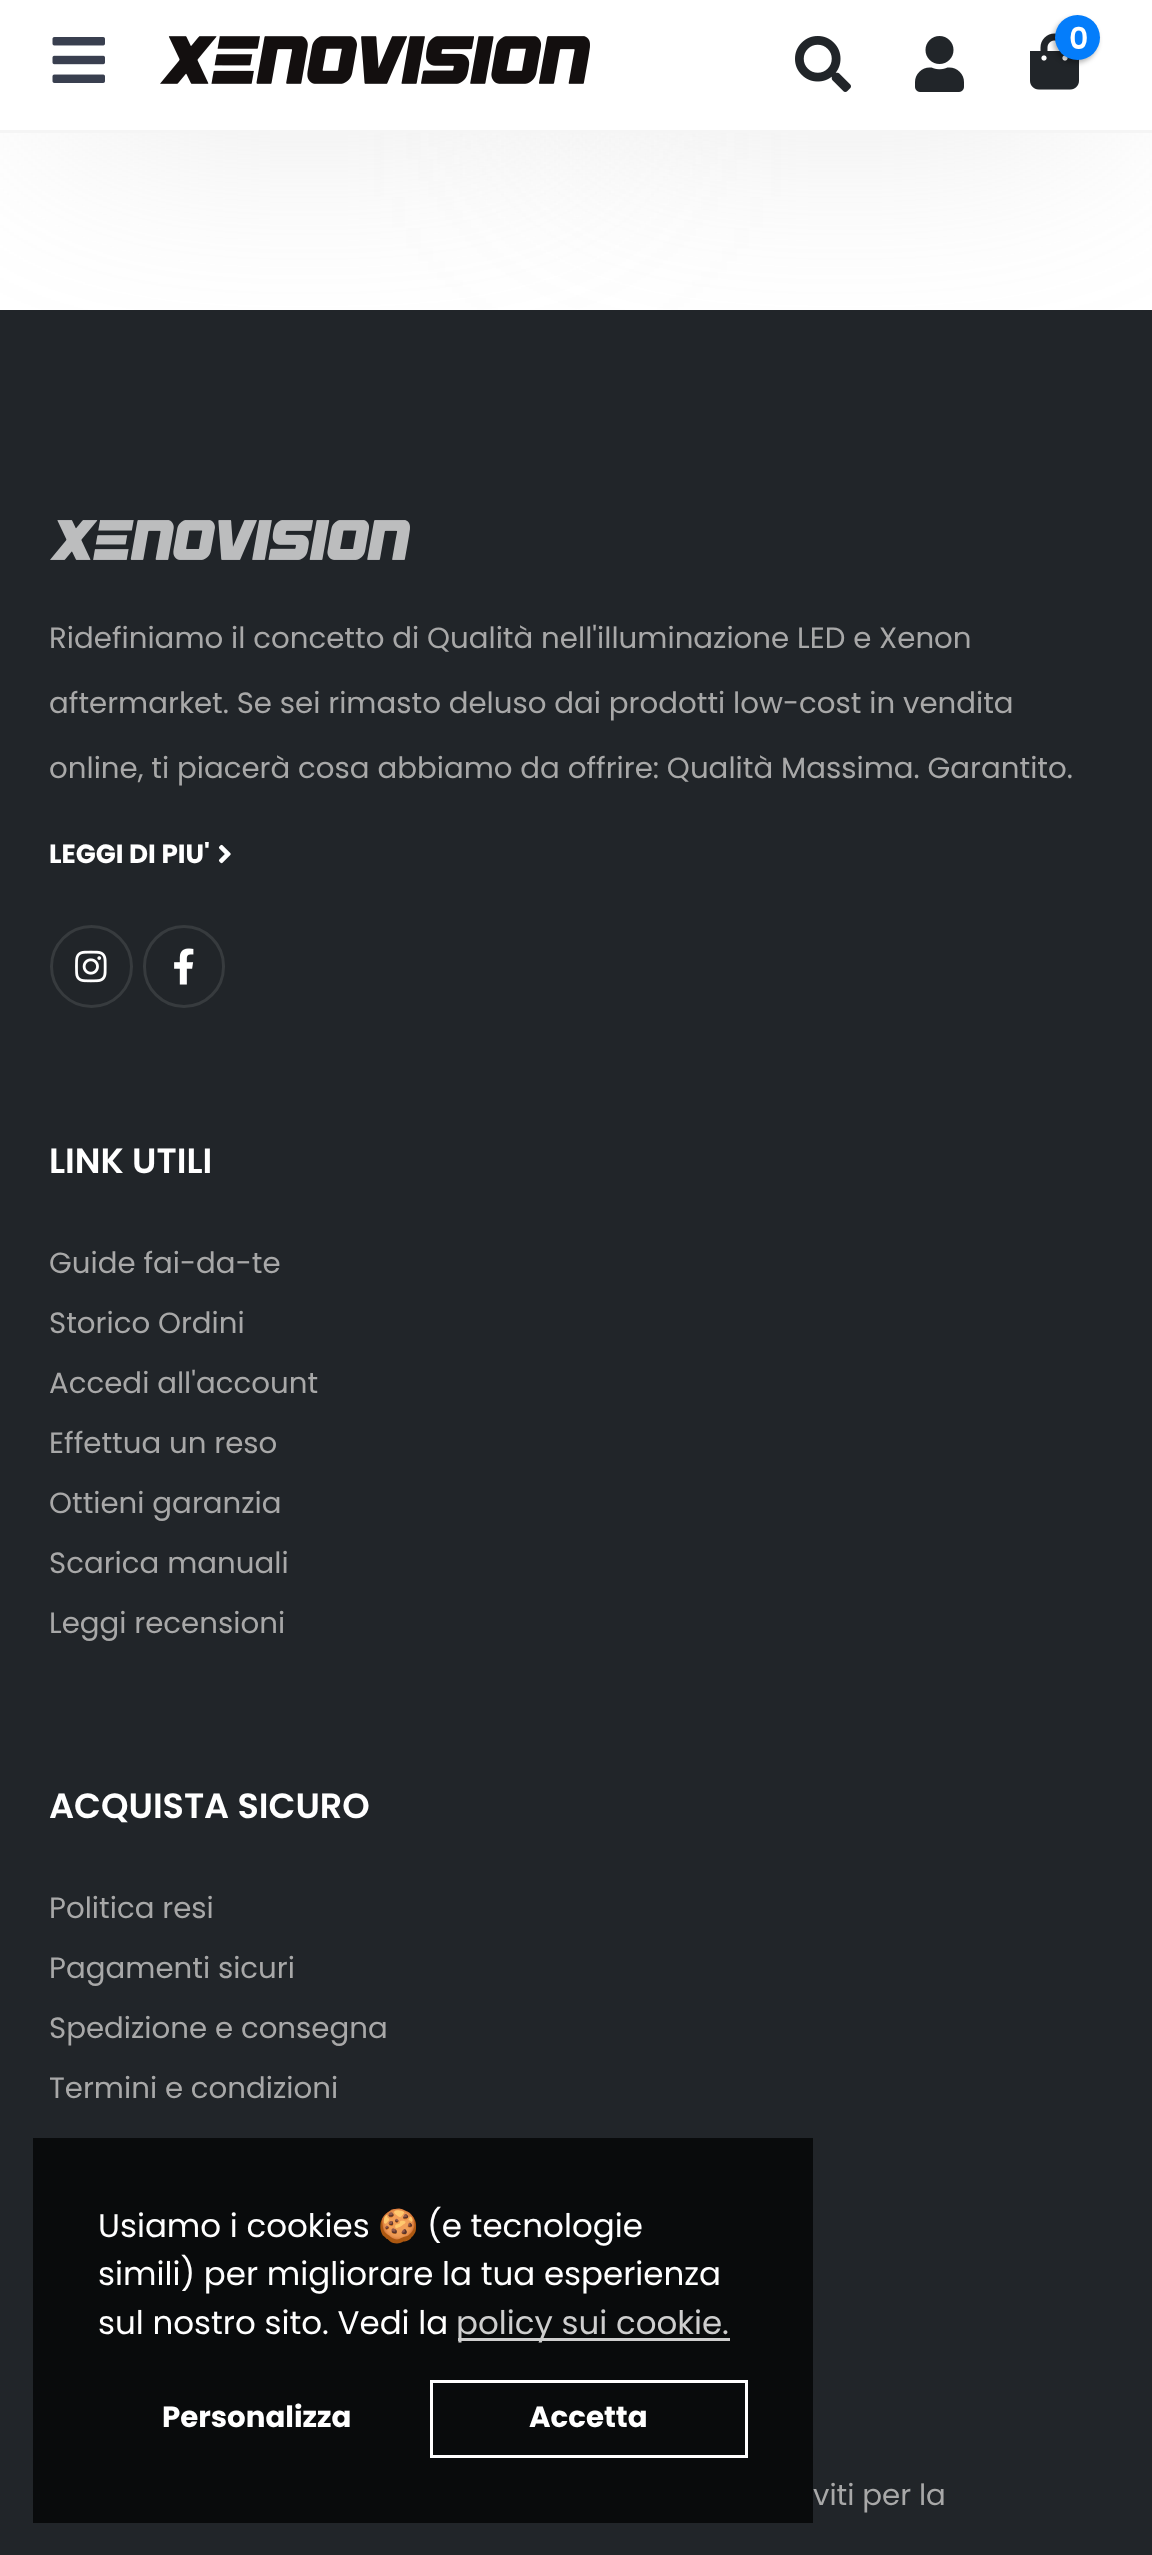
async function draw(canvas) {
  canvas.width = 1152
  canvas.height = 2555
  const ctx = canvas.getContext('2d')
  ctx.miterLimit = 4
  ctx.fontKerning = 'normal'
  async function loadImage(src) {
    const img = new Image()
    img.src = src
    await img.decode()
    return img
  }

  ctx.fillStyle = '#fff'
  ctx.fillRect(0, 0, 1152, 2555)
  ctx.fillStyle = '#bbbbbb54'
  ctx.filter = 'blur(112.5px)'
  ctx.beginPath()
  ctx.rect(53, -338, 512, 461)
  ctx.fill()
  ctx.filter = 'none'
  ctx.filter = 'blur(112.5px)'
  ctx.beginPath()
  ctx.rect(590, -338, 510, 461)
  ctx.fill()
  ctx.filter = 'none'
  ctx.fillStyle = '#fff'
  ctx.fillRect(0, 0, 1152, 130)
  ctx.fillStyle = '#f5f5f5'
  ctx.fillRect(0, 130, 1152, 3)
  ctx.drawImage(await loadImage('image0.png'), 52, 37, 53, 46)
  ctx.drawImage(await loadImage('image1.png'), 160, 36, 430, 48)
  ctx.drawImage(await loadImage('image2.png'), 795, 36, 56, 56)
  ctx.drawImage(await loadImage('image3.png'), 915, 36, 49, 56)
  ctx.drawImage(await loadImage('image4.png'), 1030, 33, 49, 57)
  ctx.fillStyle = '#0000004d'
  ctx.filter = 'blur(2.5px)'
  ctx.beginPath()
  ctx.roundRect(1053, 18, 45, 45, 22.5)
  ctx.fill()
  ctx.filter = 'none'
  ctx.fillStyle = '#047dfb'
  ctx.beginPath()
  ctx.arc(1077.5, 37.5, 22.5, 0, 2 * Math.PI)
  ctx.fill()
  ctx.font = '600 30px Poppins'
  ctx.fillStyle = '#fff'
  ctx.fillText('0', 1069, 49)
  ctx.fillStyle = '#212529'
  ctx.fillRect(0, 310, 1152, 2245)
  ctx.drawImage(await loadImage('image5.png'), 50, 520, 360, 40)
  ctx.font = '29.25px Poppins'
  ctx.fillStyle = '#a8a8a8'
  ctx.fillText('Ridefiniamo il concetto di Qualità nell\'illuminazione LED e Xenon', 49, 648)
  ctx.fillText('aftermarket. Se sei rimasto deluso dai prodotti low-cost in vendita', 49, 713)
  ctx.fillText('online, ti piacerà cosa abbiamo da offrire: Qualità Massima. Garantito.', 49, 778)
  ctx.font = 'bold 26.25px Poppins'
  ctx.fillStyle = '#fff'
  ctx.fillText('LEGGI DI PIU\'', 49, 863)
  ctx.drawImage(await loadImage('image6.png'), 218, 844, 13, 20)
  ctx.beginPath()
  ctx.arc(91.5, 966.5, 40, 0, 2 * Math.PI)
  ctx.strokeStyle = '#373b3e'
  ctx.lineWidth = 3
  ctx.stroke()
  ctx.drawImage(await loadImage('image7.png'), 75, 950, 32, 33)
  ctx.beginPath()
  ctx.roundRect(144.5, 926.5, 79, 80, 39.5)
  ctx.stroke()
  ctx.drawImage(await loadImage('image8.png'), 174, 948, 20, 37)
  ctx.font = '600 35px Poppins'
  ctx.fillText('LINK UTILI', 49, 1173)
  ctx.font = '29.25px Poppins'
  ctx.fillStyle = '#a8a8a8'
  ctx.fillText('Guide fai-da-te', 49, 1273)
  ctx.fillText('Storico Ordini', 49, 1333)
  ctx.fillText('Accedi all\'account', 49, 1393)
  ctx.fillText('Effettua un reso', 49, 1453)
  ctx.fillText('Ottieni garanzia', 49, 1513)
  ctx.fillText('Scarica manuali', 49, 1573)
  ctx.fillText('Leggi recensioni', 49, 1633)
  ctx.font = '600 35px Poppins'
  ctx.fillStyle = '#fff'
  ctx.fillText('ACQUISTA SICURO', 49, 1818)
  ctx.font = '29.25px Poppins'
  ctx.fillStyle = '#a8a8a8'
  ctx.fillText('Politica resi', 49, 1918)
  ctx.fillText('Pagamenti sicuri', 49, 1978)
  ctx.fillText('Spedizione e consegna', 49, 2038)
  ctx.fillText('Termini e condizioni', 49, 2098)
  ctx.fillText('viti per la', 813, 2505)
  ctx.fillStyle = '#000000b3'
  ctx.fillRect(33, 2138, 780, 385)
  ctx.font = '32.5px Poppins'
  ctx.fillStyle = '#fff'
  ctx.fillText('Usiamo i cookies', 98, 2237)
  ctx.font = '32.5px Noto Color Emoji'
  ctx.fillText('🍪', 378, 2237)
  ctx.font = '32.5px Poppins'
  ctx.fillText('(e tecnologie', 427, 2237)
  ctx.fillText('simili) per migliorare la tua esperienza', 98, 2285)
  ctx.fillText('sul nostro sito. Vedi la', 98, 2334)
  ctx.fillStyle = '#cecece'
  ctx.fillRect(458, 2338, 272, 3)
  ctx.fillText('policy sui cookie.', 456, 2334)
  ctx.font = 'bold 29.25px Poppins'
  ctx.fillStyle = '#fff'
  ctx.fillText('Personalizza', 162, 2427)
  ctx.strokeStyle = '#fff'
  ctx.strokeRect(431.5, 2381.5, 315, 75)
  ctx.fillText('Accetta', 529, 2427)
}

draw(document.querySelector('canvas'))
